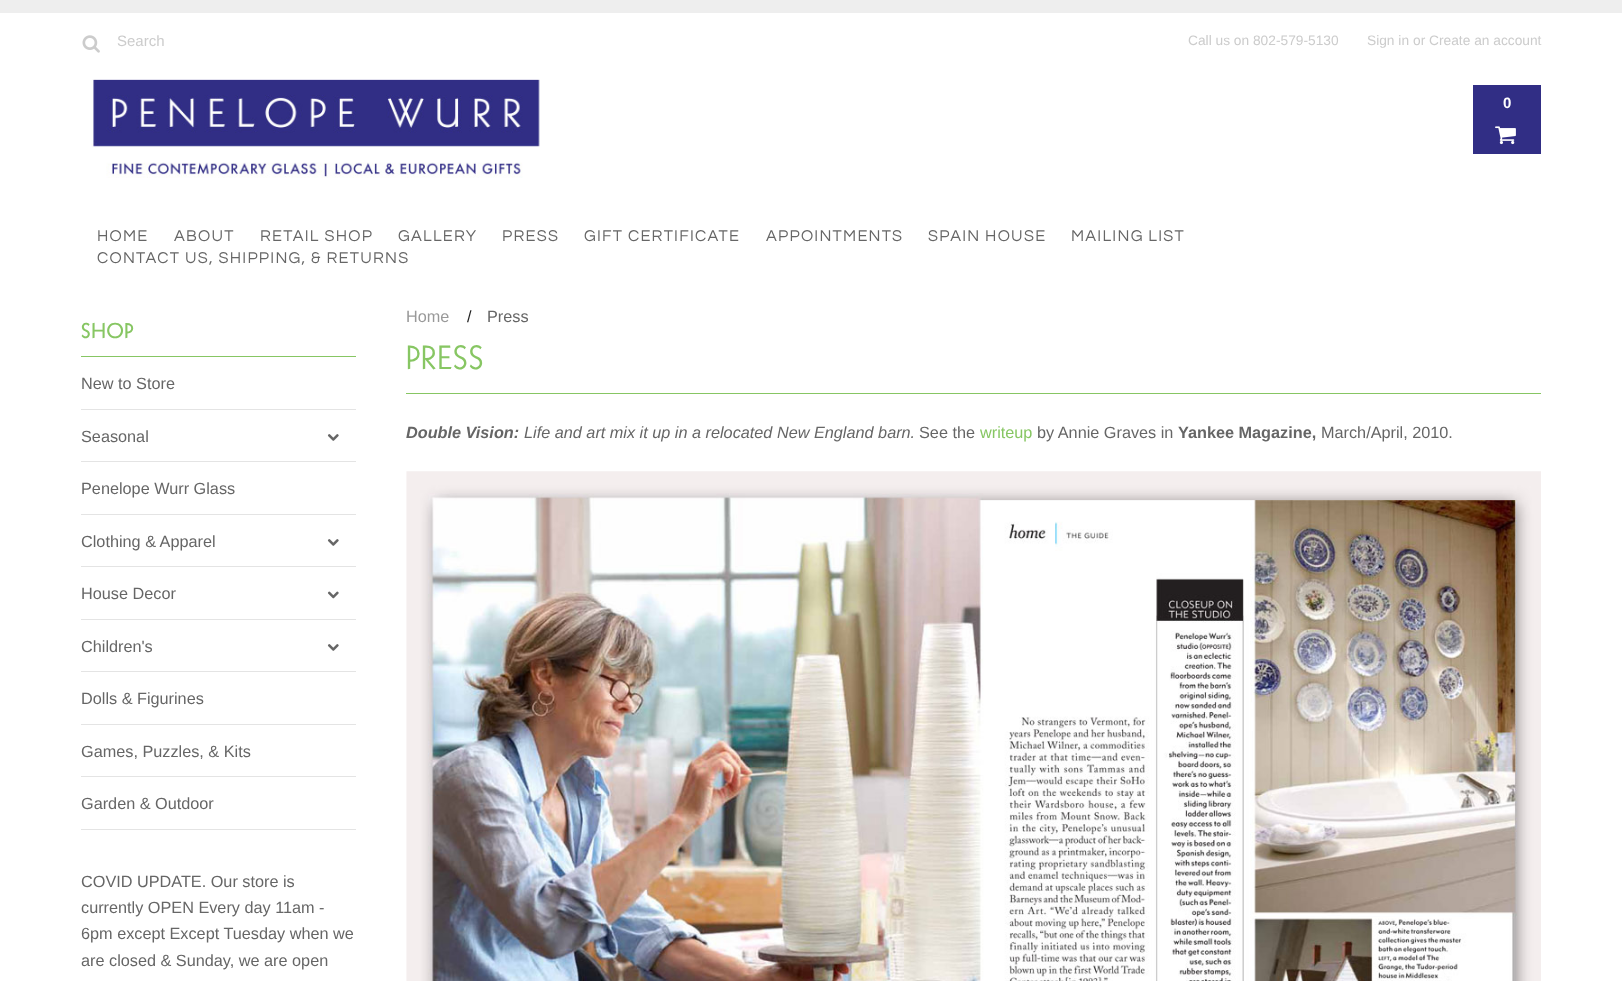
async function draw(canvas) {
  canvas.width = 1622
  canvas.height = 981
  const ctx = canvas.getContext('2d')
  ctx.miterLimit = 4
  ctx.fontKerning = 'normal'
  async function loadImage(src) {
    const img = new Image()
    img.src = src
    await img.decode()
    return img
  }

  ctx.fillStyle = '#fff'
  ctx.fillRect(0, 0, 1622, 981)
  ctx.fillStyle = '#eee'
  ctx.fillRect(0, 0, 1622, 13)
  ctx.drawImage(await loadImage('image0.png'), 82, 35, 18, 18)
  ctx.font = '15px Liberation Sans'
  ctx.fillStyle = '#ccc'
  ctx.fillText('Search', 117, 46)
  ctx.font = '13.75px Liberation Sans'
  ctx.fillText('Call us on 802-579-5130', 1188, 45)
  ctx.fillText('Sign in', 1367, 45)
  ctx.fillText('or Create an account', 1413, 45)
  ctx.drawImage(await loadImage('image1.png'), 91, 79, 449, 99)
  ctx.fillStyle = '#312e85'
  ctx.fillRect(1473, 85, 68, 69)
  ctx.font = 'bold 15px Liberation Sans'
  ctx.fillStyle = '#fff'
  ctx.fillText('0', 1503, 108)
  ctx.drawImage(await loadImage('image2.png'), 1495, 126, 21, 19)
  ctx.letterSpacing = '1.25px'
  ctx.font = '16.25px Questrial'
  ctx.fillStyle = '#666'
  ctx.fillText('HOME', 97, 241)
  ctx.fillText('ABOUT', 174, 241)
  ctx.fillText('RETAIL SHOP', 260, 241)
  ctx.fillText('GALLERY', 398, 241)
  ctx.fillText('PRESS', 502, 241)
  ctx.fillText('GIFT CERTIFICATE', 584, 241)
  ctx.fillText('APPOINTMENTS', 766, 241)
  ctx.fillText('SPAIN HOUSE', 928, 241)
  ctx.fillText('MAILING LIST', 1071, 241)
  ctx.fillText('CONTACT US, SHIPPING, & RETURNS', 97, 263)
  ctx.fillStyle = '#87c663'
  ctx.fillRect(81, 356, 275, 1)
  ctx.font = 'bold 20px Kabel'
  ctx.fillText('SHOP', 81, 338)
  ctx.fillStyle = '#e4e4e4'
  ctx.fillRect(81, 409, 275, 1)
  ctx.letterSpacing = '0px'
  ctx.font = '16.25px Liberation Sans'
  ctx.fillStyle = '#666'
  ctx.fillText('New to Store', 81, 389)
  ctx.fillStyle = '#e4e4e4'
  ctx.fillRect(81, 461, 275, 1)
  ctx.fillStyle = '#666'
  ctx.fillText('Seasonal', 81, 442)
  ctx.drawImage(await loadImage('image3.png'), 327, 434, 12, 7)
  ctx.fillStyle = '#e4e4e4'
  ctx.fillRect(81, 514, 275, 1)
  ctx.fillStyle = '#666'
  ctx.fillText('Penelope Wurr Glass', 81, 494)
  ctx.fillStyle = '#e4e4e4'
  ctx.fillRect(81, 566, 275, 1)
  ctx.fillStyle = '#666'
  ctx.fillText('Clothing & Apparel', 81, 547)
  ctx.drawImage(await loadImage('image3.png'), 327, 539, 12, 7)
  ctx.fillStyle = '#e4e4e4'
  ctx.fillRect(81, 619, 275, 1)
  ctx.fillStyle = '#666'
  ctx.fillText('House Decor', 81, 599)
  ctx.drawImage(await loadImage('image4.png'), 327, 591, 12, 8)
  ctx.fillStyle = '#e4e4e4'
  ctx.fillRect(81, 671, 275, 1)
  ctx.fillStyle = '#666'
  ctx.fillText('Children\'s', 81, 652)
  ctx.drawImage(await loadImage('image3.png'), 327, 644, 12, 7)
  ctx.fillStyle = '#e4e4e4'
  ctx.fillRect(81, 724, 275, 1)
  ctx.fillStyle = '#666'
  ctx.fillText('Dolls & Figurines', 81, 704)
  ctx.fillStyle = '#e4e4e4'
  ctx.fillRect(81, 776, 275, 1)
  ctx.fillStyle = '#666'
  ctx.fillText('Games, Puzzles, & Kits', 81, 757)
  ctx.fillStyle = '#e4e4e4'
  ctx.fillRect(81, 829, 275, 1)
  ctx.fillStyle = '#666'
  ctx.fillText('Garden & Outdoor', 81, 809)
  ctx.fillText('COVID UPDATE. Our store is', 81, 887)
  ctx.fillText('currently OPEN Every day 11am -', 81, 913)
  ctx.fillText('6pm except Except Tuesday when we', 81, 939)
  ctx.fillText('are closed & Sunday, we are open', 81, 966)
  ctx.fillStyle = '#999'
  ctx.fillText('Home', 406, 322)
  ctx.fillStyle = '#202020'
  ctx.fillText('/', 467, 322)
  ctx.fillStyle = '#666'
  ctx.fillText('Press', 487, 322)
  ctx.fillStyle = '#87c663'
  ctx.fillRect(406, 393, 1135, 1)
  ctx.letterSpacing = '1.25px'
  ctx.font = '32.5px Kabel'
  ctx.fillText('PRESS', 406, 369)
  ctx.letterSpacing = '0px'
  ctx.font = 'italic bold 16.25px Liberation Sans'
  ctx.fillStyle = '#666'
  ctx.fillText('Double Vision:', 406, 438)
  ctx.font = 'italic 16.25px Liberation Sans'
  ctx.fillText('Life and art mix it up in a relocated New England barn.', 524, 438)
  ctx.font = '16.25px Liberation Sans'
  ctx.fillText('See the', 919, 438)
  ctx.fillStyle = '#87c663'
  ctx.fillText('writeup', 980, 438)
  ctx.fillStyle = '#666'
  ctx.fillText('by Annie Graves in', 1037, 438)
  ctx.font = 'bold 16.25px Liberation Sans'
  ctx.fillText('Yankee Magazine,', 1178, 438)
  ctx.font = '16.25px Liberation Sans'
  ctx.fillText('March/April, 2010.', 1321, 438)
  ctx.drawImage(await loadImage('image5.png'), 406, 471, 1135, 510)
}

draw(document.querySelector('canvas'))
